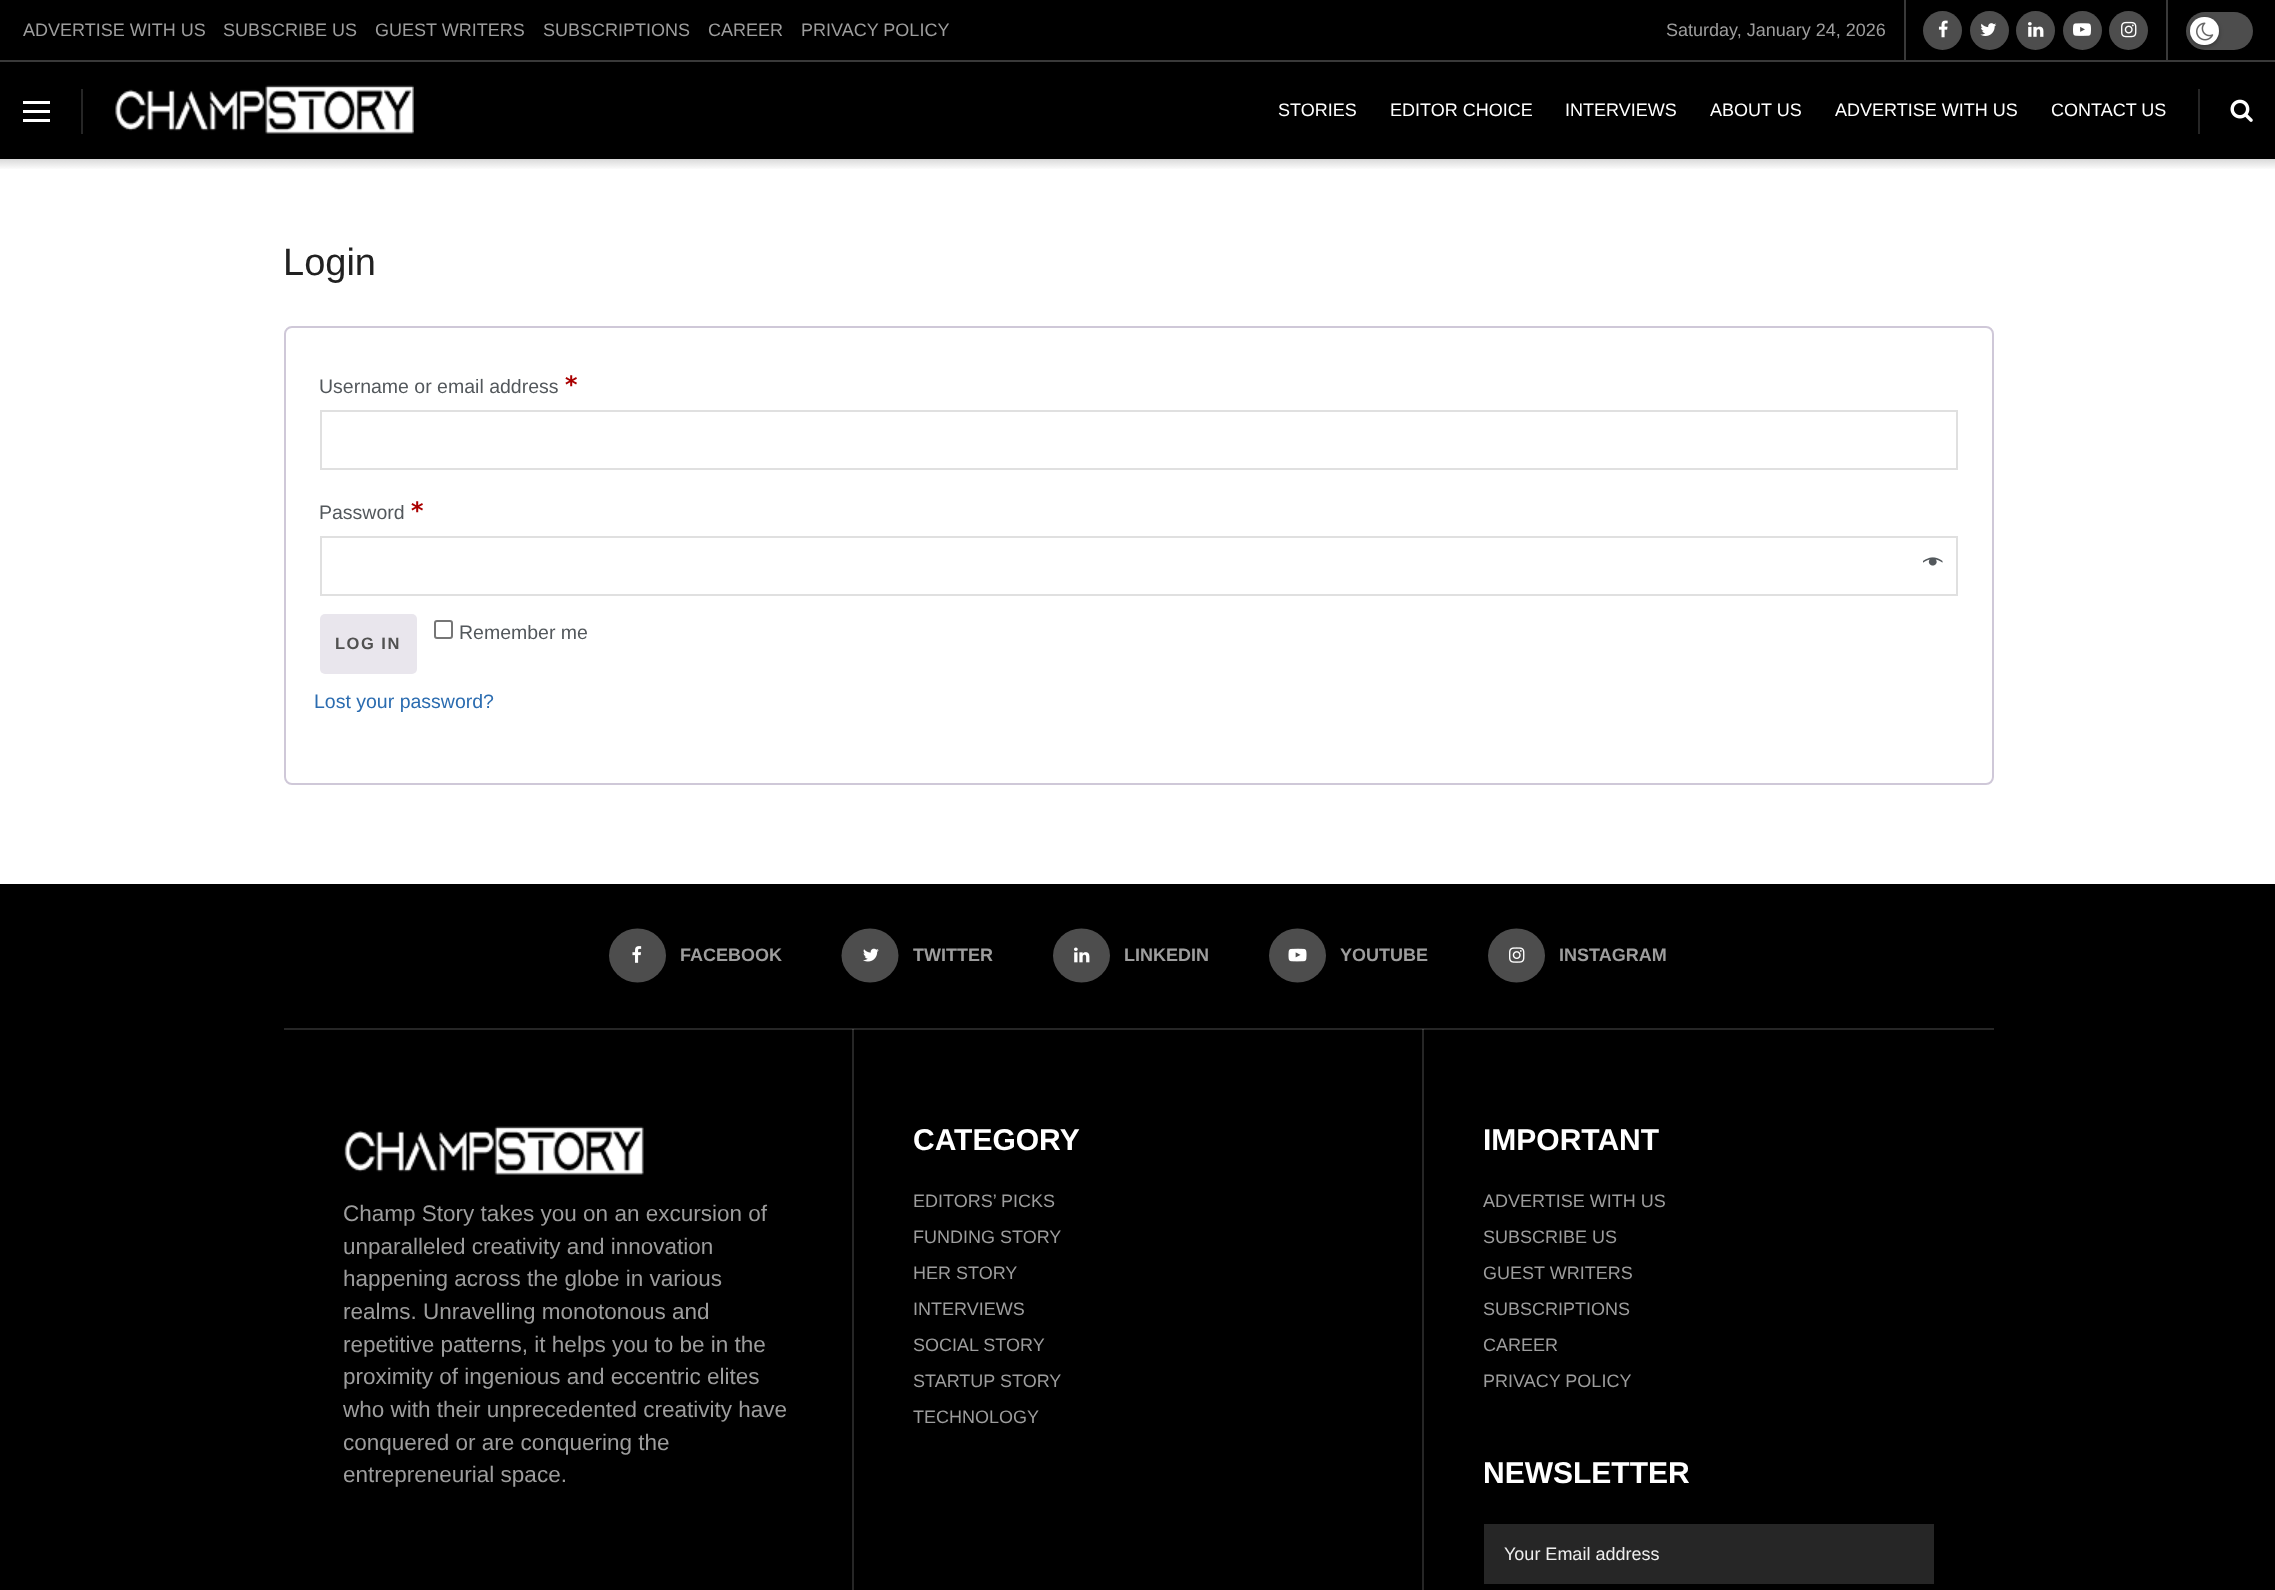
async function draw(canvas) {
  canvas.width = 2275
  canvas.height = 1590
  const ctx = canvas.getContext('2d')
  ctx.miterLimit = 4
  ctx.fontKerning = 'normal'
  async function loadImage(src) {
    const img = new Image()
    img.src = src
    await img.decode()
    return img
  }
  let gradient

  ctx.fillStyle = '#fff'
  ctx.fillRect(0, 0, 2275, 1590)
  ctx.fillStyle = '#000'
  ctx.fillRect(0, 0, 2275, 60)
  ctx.font = '18px Liberation Sans'
  ctx.fillStyle = '#9d9d9d'
  ctx.fillText('ADVERTISE WITH US', 23, 36)
  ctx.fillText('SUBSCRIBE US', 223, 36)
  ctx.fillText('GUEST WRITERS', 375, 36)
  ctx.fillText('SUBSCRIPTIONS', 543, 36)
  ctx.fillText('CAREER', 708, 36)
  ctx.fillText('PRIVACY POLICY', 801, 36)
  ctx.fillStyle = '#393939'
  ctx.fillRect(1904, 0, 2, 60)
  ctx.fillStyle = '#9d9d9d'
  ctx.fillText('Saturday, January 24, 2026', 1666, 36)
  ctx.fillStyle = '#393939'
  ctx.fillRect(2166, 0, 2, 60)
  ctx.fillStyle = '#4d4d4d'
  ctx.beginPath()
  ctx.arc(1942.5, 30.5, 19.5, 0, 2 * Math.PI)
  ctx.fill()
  ctx.drawImage(await loadImage('image0.png'), 1938, 20, 10, 18)
  ctx.beginPath()
  ctx.arc(1989.5, 30.5, 19.5, 0, 2 * Math.PI)
  ctx.fill()
  ctx.drawImage(await loadImage('image1.png'), 1980, 23, 17, 13)
  ctx.beginPath()
  ctx.arc(2035.5, 30.5, 19.5, 0, 2 * Math.PI)
  ctx.fill()
  ctx.drawImage(await loadImage('image2.png'), 2028, 22, 16, 15)
  ctx.beginPath()
  ctx.arc(2082.5, 30.5, 19.5, 0, 2 * Math.PI)
  ctx.fill()
  ctx.drawImage(await loadImage('image3.png'), 2073, 23, 18, 13)
  ctx.beginPath()
  ctx.arc(2128.5, 30.5, 19.5, 0, 2 * Math.PI)
  ctx.fill()
  ctx.drawImage(await loadImage('image4.png'), 2121, 21, 16, 17)
  ctx.beginPath()
  ctx.roundRect(2186, 12, 67, 38, 19)
  ctx.fill()
  ctx.fillStyle = '#0000004d'
  ctx.filter = 'blur(2px)'
  ctx.beginPath()
  ctx.roundRect(2190, 18, 29, 29, 14.5)
  ctx.fill()
  ctx.filter = 'none'
  ctx.fillStyle = '#fff'
  ctx.beginPath()
  ctx.roundRect(2190, 17, 29, 28, 14)
  ctx.fill()
  ctx.drawImage(await loadImage('image5.png'), 2196, 22, 18, 19)
  ctx.fillStyle = '#000'
  ctx.fillRect(0, 62, 2275, 97)
  ctx.fillStyle = '#393939'
  ctx.fillRect(0, 60, 2275, 2)
  ctx.fillStyle = '#fff'
  ctx.fillRect(23, 101, 27, 3)
  ctx.fillRect(23, 110, 27, 3)
  ctx.fillRect(23, 119, 27, 3)
  ctx.fillStyle = '#262626'
  ctx.fillRect(81, 89, 2, 45)
  ctx.drawImage(await loadImage('image6.png'), 115, 85, 299, 49)
  ctx.fillStyle = '#fff'
  ctx.fillText('STORIES', 1278, 116)
  ctx.fillText('EDITOR CHOICE', 1390, 116)
  ctx.fillText('INTERVIEWS', 1565, 116)
  ctx.fillText('ABOUT US', 1710, 116)
  ctx.fillText('ADVERTISE WITH US', 1835, 116)
  ctx.fillText('CONTACT US', 2051, 116)
  ctx.fillStyle = '#262626'
  ctx.fillRect(2198, 89, 2, 45)
  ctx.drawImage(await loadImage('image7.png'), 2230, 99, 23, 23)
  gradient = ctx.createLinearGradient(1138, 159, 1138, 170)
  gradient.addColorStop(0, '#d9d9d9')
  gradient.addColorStop(1, '#fff')
  ctx.fillStyle = gradient
  ctx.fillRect(0, 159, 2275, 10)
  ctx.font = '38px Liberation Sans'
  ctx.fillStyle = '#212121'
  ctx.fillText('Login', 283, 275)
  ctx.beginPath()
  ctx.roundRect(285, 327, 1708, 457, 7)
  ctx.strokeStyle = '#cfc8d8'
  ctx.lineWidth = 2
  ctx.stroke()
  ctx.font = '19.5px Liberation Sans'
  ctx.fillStyle = '#53585c'
  ctx.fillText('Username or email address', 319, 393)
  ctx.font = 'bold 24px DejaVu Sans Mono'
  ctx.fillStyle = '#a00'
  ctx.fillText('*', 564, 393)
  ctx.strokeStyle = '#e0e0e0'
  ctx.strokeRect(321, 411, 1636, 58)
  ctx.font = '19.5px Liberation Sans'
  ctx.fillStyle = '#53585c'
  ctx.fillText('Password', 319, 519)
  ctx.font = 'bold 24px DejaVu Sans Mono'
  ctx.fillStyle = '#a00'
  ctx.fillText('*', 410, 519)
  ctx.strokeRect(321, 537, 1636, 58)
  ctx.drawImage(await loadImage('image8.png'), 1923, 557, 20, 9)
  ctx.beginPath()
  ctx.roundRect(435, 621, 17, 17, 2)
  ctx.strokeStyle = '#767676'
  ctx.stroke()
  ctx.font = '19.5px Liberation Sans'
  ctx.fillStyle = '#53585c'
  ctx.fillText('Remember me', 459, 639)
  ctx.fillStyle = '#e9e6ed'
  ctx.beginPath()
  ctx.roundRect(320, 614, 97, 60, 5)
  ctx.fill()
  ctx.letterSpacing = '1.5px'
  ctx.font = 'bold 16.5px Liberation Sans'
  ctx.fillStyle = '#515151'
  ctx.fillText('LOG IN', 335, 649)
  ctx.letterSpacing = '0px'
  ctx.font = '19.5px Liberation Sans'
  ctx.fillStyle = '#2b6cb0'
  ctx.fillText('Lost your password?', 314, 708)
  ctx.fillStyle = '#000'
  ctx.fillRect(0, 884, 2275, 706)
  ctx.fillStyle = '#262626'
  ctx.fillRect(1422, 1029, 2, 561)
  ctx.fillRect(852, 1029, 2, 561)
  ctx.fillRect(284, 1028, 1710, 2)
  ctx.fillStyle = '#474747'
  ctx.fillRect(1422, 1029, 2, 1)
  ctx.fillRect(852, 1029, 2, 1)
  ctx.fillStyle = '#4d4d4d'
  ctx.beginPath()
  ctx.ellipse(637.5, 955.5, 28.5, 27, 0, 0, 2 * Math.PI)
  ctx.fill()
  ctx.drawImage(await loadImage('image9.png'), 632, 946, 10, 17)
  ctx.font = 'bold 18px Liberation Sans'
  ctx.fillStyle = '#9d9d9d'
  ctx.fillText('FACEBOOK', 680, 961)
  ctx.fillStyle = '#4d4d4d'
  ctx.beginPath()
  ctx.ellipse(870, 955.5, 28.5, 27, 0, 0, 2 * Math.PI)
  ctx.fill()
  ctx.drawImage(await loadImage('image10.png'), 863, 948, 16, 14)
  ctx.fillStyle = '#9d9d9d'
  ctx.fillText('TWITTER', 913, 961)
  ctx.fillStyle = '#4d4d4d'
  ctx.beginPath()
  ctx.ellipse(1081.5, 955.5, 28.5, 27, 0, 0, 2 * Math.PI)
  ctx.fill()
  ctx.drawImage(await loadImage('image11.png'), 1074, 947, 16, 16)
  ctx.fillStyle = '#9d9d9d'
  ctx.fillText('LINKEDIN', 1124, 961)
  ctx.fillStyle = '#4d4d4d'
  ctx.beginPath()
  ctx.ellipse(1297.5, 955.5, 28.5, 27, 0, 0, 2 * Math.PI)
  ctx.fill()
  ctx.drawImage(await loadImage('image12.png'), 1288, 948, 19, 14)
  ctx.fillStyle = '#9d9d9d'
  ctx.fillText('YOUTUBE', 1340, 961)
  ctx.fillStyle = '#4d4d4d'
  ctx.beginPath()
  ctx.ellipse(1516.5, 955.5, 28.5, 27, 0, 0, 2 * Math.PI)
  ctx.fill()
  ctx.drawImage(await loadImage('image13.png'), 1509, 947, 16, 16)
  ctx.fillStyle = '#9d9d9d'
  ctx.fillText('INSTAGRAM', 1559, 961)
  ctx.drawImage(await loadImage('image14.png'), 344, 1126, 300, 49)
  ctx.font = '22.5px Liberation Sans'
  ctx.fillText('Champ Story takes you on an excursion of', 343, 1221)
  ctx.fillText('unparalleled creativity and innovation', 343, 1254)
  ctx.fillText('happening across the globe in various', 343, 1286)
  ctx.fillText('realms. Unravelling monotonous and', 343, 1319)
  ctx.fillText('repetitive patterns, it helps you to be in the', 343, 1352)
  ctx.fillText('proximity of ingenious and eccentric elites', 343, 1384)
  ctx.fillText('who with their unprecedented creativity have', 343, 1417)
  ctx.fillText('conquered or are conquering the', 343, 1450)
  ctx.fillText('entrepreneurial space.', 343, 1482)
  ctx.font = 'bold 30px Liberation Sans'
  ctx.fillStyle = '#fff'
  ctx.fillText('CATEGORY', 913, 1150)
  ctx.font = '18px Liberation Sans'
  ctx.fillStyle = '#9d9d9d'
  ctx.fillText('EDITORS’ PICKS', 913, 1207)
  ctx.fillText('FUNDING STORY', 913, 1243)
  ctx.fillText('HER STORY', 913, 1279)
  ctx.fillText('INTERVIEWS', 913, 1315)
  ctx.fillText('SOCIAL STORY', 913, 1351)
  ctx.fillText('STARTUP STORY', 913, 1387)
  ctx.fillText('TECHNOLOGY', 913, 1423)
  ctx.font = 'bold 30px Liberation Sans'
  ctx.fillStyle = '#fff'
  ctx.fillText('IMPORTANT', 1483, 1150)
  ctx.font = '18px Liberation Sans'
  ctx.fillStyle = '#9d9d9d'
  ctx.fillText('ADVERTISE WITH US', 1483, 1207)
  ctx.fillText('SUBSCRIBE US', 1483, 1243)
  ctx.fillText('GUEST WRITERS', 1483, 1279)
  ctx.fillText('SUBSCRIPTIONS', 1483, 1315)
  ctx.fillText('CAREER', 1483, 1351)
  ctx.fillText('PRIVACY POLICY', 1483, 1387)
  ctx.font = 'bold 30px Liberation Sans'
  ctx.fillStyle = '#fff'
  ctx.fillText('NEWSLETTER', 1483, 1483)
  ctx.fillStyle = '#262626'
  ctx.fillRect(1484, 1524, 450, 60)
  ctx.font = '18px Liberation Sans'
  ctx.fillStyle = '#eee'
  ctx.fillText('Your Email address', 1504, 1560)
}

draw(document.querySelector('canvas'))
